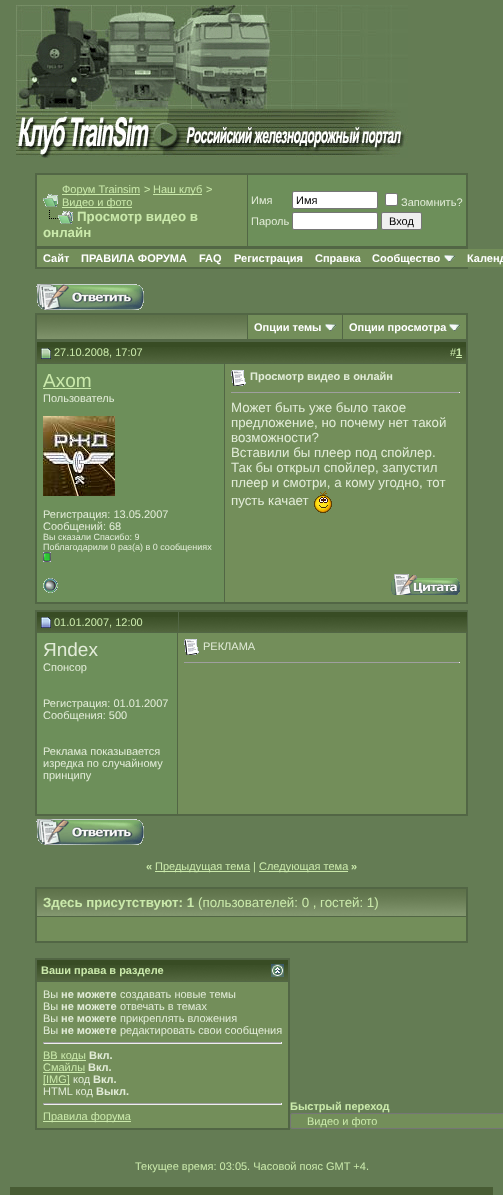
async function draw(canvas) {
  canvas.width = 503
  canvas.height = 1195
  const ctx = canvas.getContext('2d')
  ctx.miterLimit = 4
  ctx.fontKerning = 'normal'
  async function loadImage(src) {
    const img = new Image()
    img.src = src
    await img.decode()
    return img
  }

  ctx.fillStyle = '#647c54'
  ctx.fillRect(0, 0, 503, 1195)
  ctx.drawImage(await loadImage('image0.png'), 16, 5, 392, 153)
  ctx.fillStyle = '#526645'
  ctx.fillRect(35, 173, 433, 75)
  ctx.fillStyle = '#738e5a'
  ctx.fillRect(37, 175, 210, 71)
  ctx.drawImage(await loadImage('image1.png'), 43, 194, 15, 13)
  ctx.fillStyle = '#cae9ab'
  ctx.fillRect(62, 194, 78, 1)
  ctx.font = '11px Liberation Sans'
  ctx.fillText('Форум Trainsim', 62, 193)
  ctx.fillText('>', 144, 193)
  ctx.fillRect(153, 194, 49, 1)
  ctx.fillText('Наш клуб', 153, 193)
  ctx.fillText('>', 206, 193)
  ctx.fillRect(62, 207, 70, 1)
  ctx.fillText('Видео и фото', 62, 206)
  ctx.drawImage(await loadImage('image2.png'), 49, 210, 24, 14)
  ctx.font = 'bold 13.3px Liberation Sans'
  ctx.fillText('Просмотр видео в', 77, 221)
  ctx.fillText('онлайн', 43, 237)
  ctx.fillStyle = '#6d8f5a'
  ctx.fillRect(248, 175, 218, 71)
  ctx.font = '11px Liberation Sans'
  ctx.fillStyle = '#e2ecd8'
  ctx.fillText('Имя', 251, 204)
  ctx.fillStyle = '#fff'
  ctx.beginPath()
  ctx.roundRect(292.5, 191.5, 85, 17, 1.5)
  ctx.fill()
  ctx.strokeStyle = '#767676'
  ctx.stroke()
  ctx.fillStyle = '#000'
  ctx.fillText('Имя', 296, 204)
  ctx.fillStyle = '#fff'
  ctx.beginPath()
  ctx.roundRect(385.5, 193.5, 12, 12, 1.5)
  ctx.fill()
  ctx.stroke()
  ctx.fillStyle = '#e2ecd8'
  ctx.fillText('Запомнить?', 401, 206)
  ctx.fillText('Пароль', 251, 225)
  ctx.fillStyle = '#fff'
  ctx.beginPath()
  ctx.roundRect(292.5, 212.5, 85, 17, 1.5)
  ctx.fill()
  ctx.stroke()
  ctx.fillStyle = '#efefef'
  ctx.beginPath()
  ctx.roundRect(381.5, 212.5, 40, 17, 1.5)
  ctx.fill()
  ctx.stroke()
  ctx.fillStyle = '#000'
  ctx.fillText('Вход', 389, 225)
  ctx.fillStyle = '#526645'
  ctx.fillRect(36, 248, 431, 20)
  ctx.fillRect(467, 248, 1, 21)
  ctx.fillRect(35, 268, 433, 1)
  ctx.fillRect(35, 248, 1, 21)
  ctx.fillStyle = '#738e5a'
  ctx.fillRect(37, 249, 466, 18)
  ctx.font = 'bold 11px Liberation Sans'
  ctx.fillStyle = '#fff'
  ctx.fillText('Сайт', 43, 262)
  ctx.fillText('ПРАВИЛА ФОРУМА', 81, 262)
  ctx.fillText('FAQ', 199, 262)
  ctx.fillText('Регистрация', 234, 262)
  ctx.fillText('Справка', 315, 262)
  ctx.fillText('Сообщество', 372, 262)
  ctx.drawImage(await loadImage('image3.png'), 444, 255, 11, 7)
  ctx.fillText('Календ', 467, 262)
  ctx.drawImage(await loadImage('image4.png'), 36, 284, 108, 26)
  ctx.fillStyle = '#526645'
  ctx.fillRect(36, 314, 431, 26)
  ctx.fillRect(35, 313, 433, 1)
  ctx.fillRect(467, 313, 1, 27)
  ctx.fillRect(35, 313, 1, 27)
  ctx.drawImage(await loadImage('image5.png'), 37, 315, 210, 24)
  ctx.fillStyle = '#738e5a'
  ctx.fillRect(248, 315, 94, 24)
  ctx.fillStyle = '#fff'
  ctx.fillText('Опции темы', 254, 331)
  ctx.drawImage(await loadImage('image3.png'), 325, 324, 11, 7)
  ctx.fillStyle = '#738e5a'
  ctx.fillRect(343, 315, 123, 24)
  ctx.fillStyle = '#fff'
  ctx.fillText('Опции просмотра', 349, 331)
  ctx.drawImage(await loadImage('image3.png'), 449, 324, 11, 7)
  ctx.fillStyle = '#526645'
  ctx.fillRect(35, 340, 433, 264)
  ctx.fillStyle = '#384c24'
  ctx.fillRect(37, 342, 429, 5)
  ctx.drawImage(await loadImage('image6.png'), 37, 347, 188, 16)
  ctx.drawImage(await loadImage('image7.png'), 41, 348, 10, 11)
  ctx.font = '11px Liberation Sans'
  ctx.fillStyle = '#cae9ab'
  ctx.fillText('27.10.2008, 17:07', 54, 356)
  ctx.drawImage(await loadImage('image8.png'), 225, 347, 241, 16)
  ctx.fillText('#', 450, 356)
  ctx.font = 'bold 11px Liberation Sans'
  ctx.fillText('1', 456, 356)
  ctx.fillRect(456, 357, 6, 1)
  ctx.fillStyle = '#6d8f5a'
  ctx.fillRect(37, 364, 187, 238)
  ctx.font = '19px Liberation Sans'
  ctx.fillStyle = '#cae9ab'
  ctx.fillText('Axom', 43, 387)
  ctx.fillRect(43, 388, 48, 1)
  ctx.font = '11px Liberation Sans'
  ctx.fillStyle = '#e2ecd8'
  ctx.fillText('Пользователь', 43, 402)
  ctx.drawImage(await loadImage('image9.png'), 43, 416, 72, 80)
  ctx.fillText('Регистрация: 13.05.2007', 43, 518)
  ctx.fillText('Сообщений: 68', 43, 530)
  ctx.font = '9px Liberation Sans'
  ctx.fillText('Вы сказали Спасибо: 9', 43, 540)
  ctx.fillText('Поблагодарили 0 раз(а) в 0 сообщениях', 43, 550)
  ctx.drawImage(await loadImage('image10.png'), 43, 552, 8, 10)
  ctx.fillStyle = '#738e5a'
  ctx.fillRect(225, 364, 241, 238)
  ctx.drawImage(await loadImage('image11.png'), 231, 370, 15, 16)
  ctx.font = 'bold 11px Liberation Sans'
  ctx.fillStyle = '#e2ecd8'
  ctx.fillText('Просмотр видео в онлайн', 250, 380)
  ctx.fillStyle = '#9f9f9f'
  ctx.fillRect(231, 392, 229, 1)
  ctx.fillStyle = '#eee'
  ctx.fillRect(459, 392, 1, 1)
  ctx.font = '13.3px Liberation Sans'
  ctx.fillStyle = '#e2ecd8'
  ctx.fillText('Может быть уже было такое', 231, 412)
  ctx.fillText('предложение, но почему нет такой', 231, 427)
  ctx.fillText('возможности?', 231, 442)
  ctx.fillText('Вставили бы плеер под спойлер.', 231, 457)
  ctx.fillText('Так бы открыл спойлер, запустил', 231, 472)
  ctx.fillText('плеер и смотри, а кому угодно, тот', 231, 487)
  ctx.fillText('пусть качает', 231, 505)
  ctx.drawImage(await loadImage('image12.png'), 314, 491, 18, 22)
  ctx.drawImage(await loadImage('image13.png'), 43, 578, 15, 15)
  ctx.drawImage(await loadImage('image14.png'), 391, 574, 69, 21)
  ctx.fillStyle = '#526645'
  ctx.fillRect(35, 610, 433, 206)
  ctx.fillStyle = '#384c24'
  ctx.fillRect(37, 612, 141, 5)
  ctx.drawImage(await loadImage('image15.png'), 37, 617, 141, 15)
  ctx.drawImage(await loadImage('image16.png'), 41, 617, 10, 11)
  ctx.font = '11px Liberation Sans'
  ctx.fillStyle = '#cae9ab'
  ctx.fillText('01.01.2007, 12:00', 54, 626)
  ctx.fillStyle = '#384c24'
  ctx.fillRect(179, 612, 288, 5)
  ctx.drawImage(await loadImage('image17.png'), 179, 617, 288, 15)
  ctx.fillStyle = '#6d8f5a'
  ctx.fillRect(37, 633, 140, 181)
  ctx.font = '19px Liberation Sans'
  ctx.fillStyle = '#e2ecd8'
  ctx.fillText('Яndex', 43, 656)
  ctx.font = '11px Liberation Sans'
  ctx.fillText('Спонсор', 43, 671)
  ctx.fillText('Регистрация: 01.01.2007', 43, 707)
  ctx.fillText('Сообщения: 500', 43, 719)
  ctx.fillText('Реклама показывается', 43, 755)
  ctx.fillText('изредка по случайному', 43, 767)
  ctx.fillText('принципу', 43, 779)
  ctx.fillStyle = '#738e5a'
  ctx.fillRect(178, 633, 288, 181)
  ctx.drawImage(await loadImage('image11.png'), 184, 639, 15, 16)
  ctx.fillStyle = '#e2ecd8'
  ctx.fillText('РЕКЛАМА', 203, 650)
  ctx.fillStyle = '#9f9f9f'
  ctx.fillRect(184, 662, 276, 1)
  ctx.fillStyle = '#eee'
  ctx.fillRect(459, 662, 1, 1)
  ctx.drawImage(await loadImage('image4.png'), 36, 819, 108, 26)
  ctx.font = 'bold 11px Liberation Sans'
  ctx.fillStyle = '#cae9ab'
  ctx.fillText('«', 146, 870)
  ctx.fillRect(155, 871, 95, 1)
  ctx.font = '11px Liberation Sans'
  ctx.fillText('Предыдущая тема |', 155, 870)
  ctx.fillRect(259, 871, 89, 1)
  ctx.fillText('Следующая тема', 259, 870)
  ctx.font = 'bold 11px Liberation Sans'
  ctx.fillText('»', 351, 870)
  ctx.fillStyle = '#526645'
  ctx.fillRect(35, 887, 433, 56)
  ctx.drawImage(await loadImage('image18.png'), 37, 889, 429, 27)
  ctx.font = 'bold 13.3px Liberation Sans'
  ctx.fillStyle = '#cae9ab'
  ctx.fillText('Здесь присутствуют: 1', 43, 907)
  ctx.font = '13.3px Liberation Sans'
  ctx.fillText('(пользователей: 0 , гостей: 1)', 198, 907)
  ctx.fillStyle = '#738e5a'
  ctx.fillRect(37, 917, 429, 24)
  ctx.fillStyle = '#526645'
  ctx.fillRect(35, 958, 255, 172)
  ctx.fillStyle = '#384c24'
  ctx.fillRect(37, 960, 251, 5)
  ctx.drawImage(await loadImage('image19.png'), 37, 965, 251, 16)
  ctx.font = 'bold 11px Liberation Sans'
  ctx.fillStyle = '#cae9ab'
  ctx.fillText('Ваши права в разделе', 41, 974)
  ctx.drawImage(await loadImage('image20.png'), 271, 964, 13, 13)
  ctx.fillStyle = '#738e5a'
  ctx.fillRect(37, 982, 251, 146)
  ctx.font = '11px Liberation Sans'
  ctx.fillStyle = '#e2ecd8'
  ctx.fillText('Вы', 43, 998)
  ctx.font = 'bold 11px Liberation Sans'
  ctx.fillText('не можете', 61, 998)
  ctx.font = '11px Liberation Sans'
  ctx.fillText('создавать новые темы', 120, 998)
  ctx.fillText('Вы', 43, 1010)
  ctx.font = 'bold 11px Liberation Sans'
  ctx.fillText('не можете', 61, 1010)
  ctx.font = '11px Liberation Sans'
  ctx.fillText('отвечать в темах', 120, 1010)
  ctx.fillText('Вы', 43, 1022)
  ctx.font = 'bold 11px Liberation Sans'
  ctx.fillText('не можете', 61, 1022)
  ctx.font = '11px Liberation Sans'
  ctx.fillText('прикреплять вложения', 120, 1022)
  ctx.fillText('Вы', 43, 1034)
  ctx.font = 'bold 11px Liberation Sans'
  ctx.fillText('не можете', 61, 1034)
  ctx.font = '11px Liberation Sans'
  ctx.fillText('редактировать свои сообщения', 120, 1034)
  ctx.fillStyle = '#9f9f9f'
  ctx.fillRect(43, 1042, 239, 1)
  ctx.fillStyle = '#eee'
  ctx.fillRect(281, 1042, 1, 2)
  ctx.fillRect(43, 1043, 239, 1)
  ctx.fillStyle = '#9f9f9f'
  ctx.fillRect(43, 1042, 1, 2)
  ctx.fillStyle = '#cae9ab'
  ctx.fillRect(43, 1060, 43, 1)
  ctx.fillText('BB коды', 43, 1059)
  ctx.font = 'bold 11px Liberation Sans'
  ctx.fillStyle = '#e2ecd8'
  ctx.fillText('Вкл.', 89, 1059)
  ctx.font = '11px Liberation Sans'
  ctx.fillStyle = '#cae9ab'
  ctx.fillText('Смайлы', 43, 1071)
  ctx.fillRect(43, 1072, 42, 1)
  ctx.font = 'bold 11px Liberation Sans'
  ctx.fillStyle = '#e2ecd8'
  ctx.fillText('Вкл.', 88, 1071)
  ctx.fillStyle = '#cae9ab'
  ctx.fillRect(43, 1084, 27, 1)
  ctx.font = '11px Liberation Sans'
  ctx.fillText('[IMG]', 43, 1083)
  ctx.fillStyle = '#e2ecd8'
  ctx.fillText('код', 73, 1083)
  ctx.font = 'bold 11px Liberation Sans'
  ctx.fillText('Вкл.', 93, 1083)
  ctx.font = '11px Liberation Sans'
  ctx.fillText('HTML код', 43, 1095)
  ctx.font = 'bold 11px Liberation Sans'
  ctx.fillText('Выкл.', 96, 1095)
  ctx.fillStyle = '#9f9f9f'
  ctx.fillRect(43, 1103, 239, 1)
  ctx.fillStyle = '#eee'
  ctx.fillRect(281, 1103, 1, 2)
  ctx.fillRect(43, 1104, 239, 1)
  ctx.fillStyle = '#9f9f9f'
  ctx.fillRect(43, 1103, 1, 2)
  ctx.fillStyle = '#cae9ab'
  ctx.fillRect(43, 1121, 88, 1)
  ctx.font = '11px Liberation Sans'
  ctx.fillText('Правила форума', 43, 1120)
  ctx.font = 'bold 11px Liberation Sans'
  ctx.fillText('Быстрый переход', 290, 1110)
  ctx.fillStyle = '#738e5a'
  ctx.beginPath()
  ctx.roundRect(290.5, 1113.5, 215, 15, 1.5)
  ctx.fill()
  ctx.stroke()
  ctx.font = '11px Liberation Sans'
  ctx.fillStyle = '#cae9ab'
  ctx.fillText('Видео и фото', 307, 1125)
  ctx.fillText('Текущее время: 03:05. Часовой пояс GMT +4.', 135, 1170)
  ctx.fillStyle = '#485c34'
  ctx.fillRect(10, 1187, 483, 8)
}

draw(document.querySelector('canvas'))
